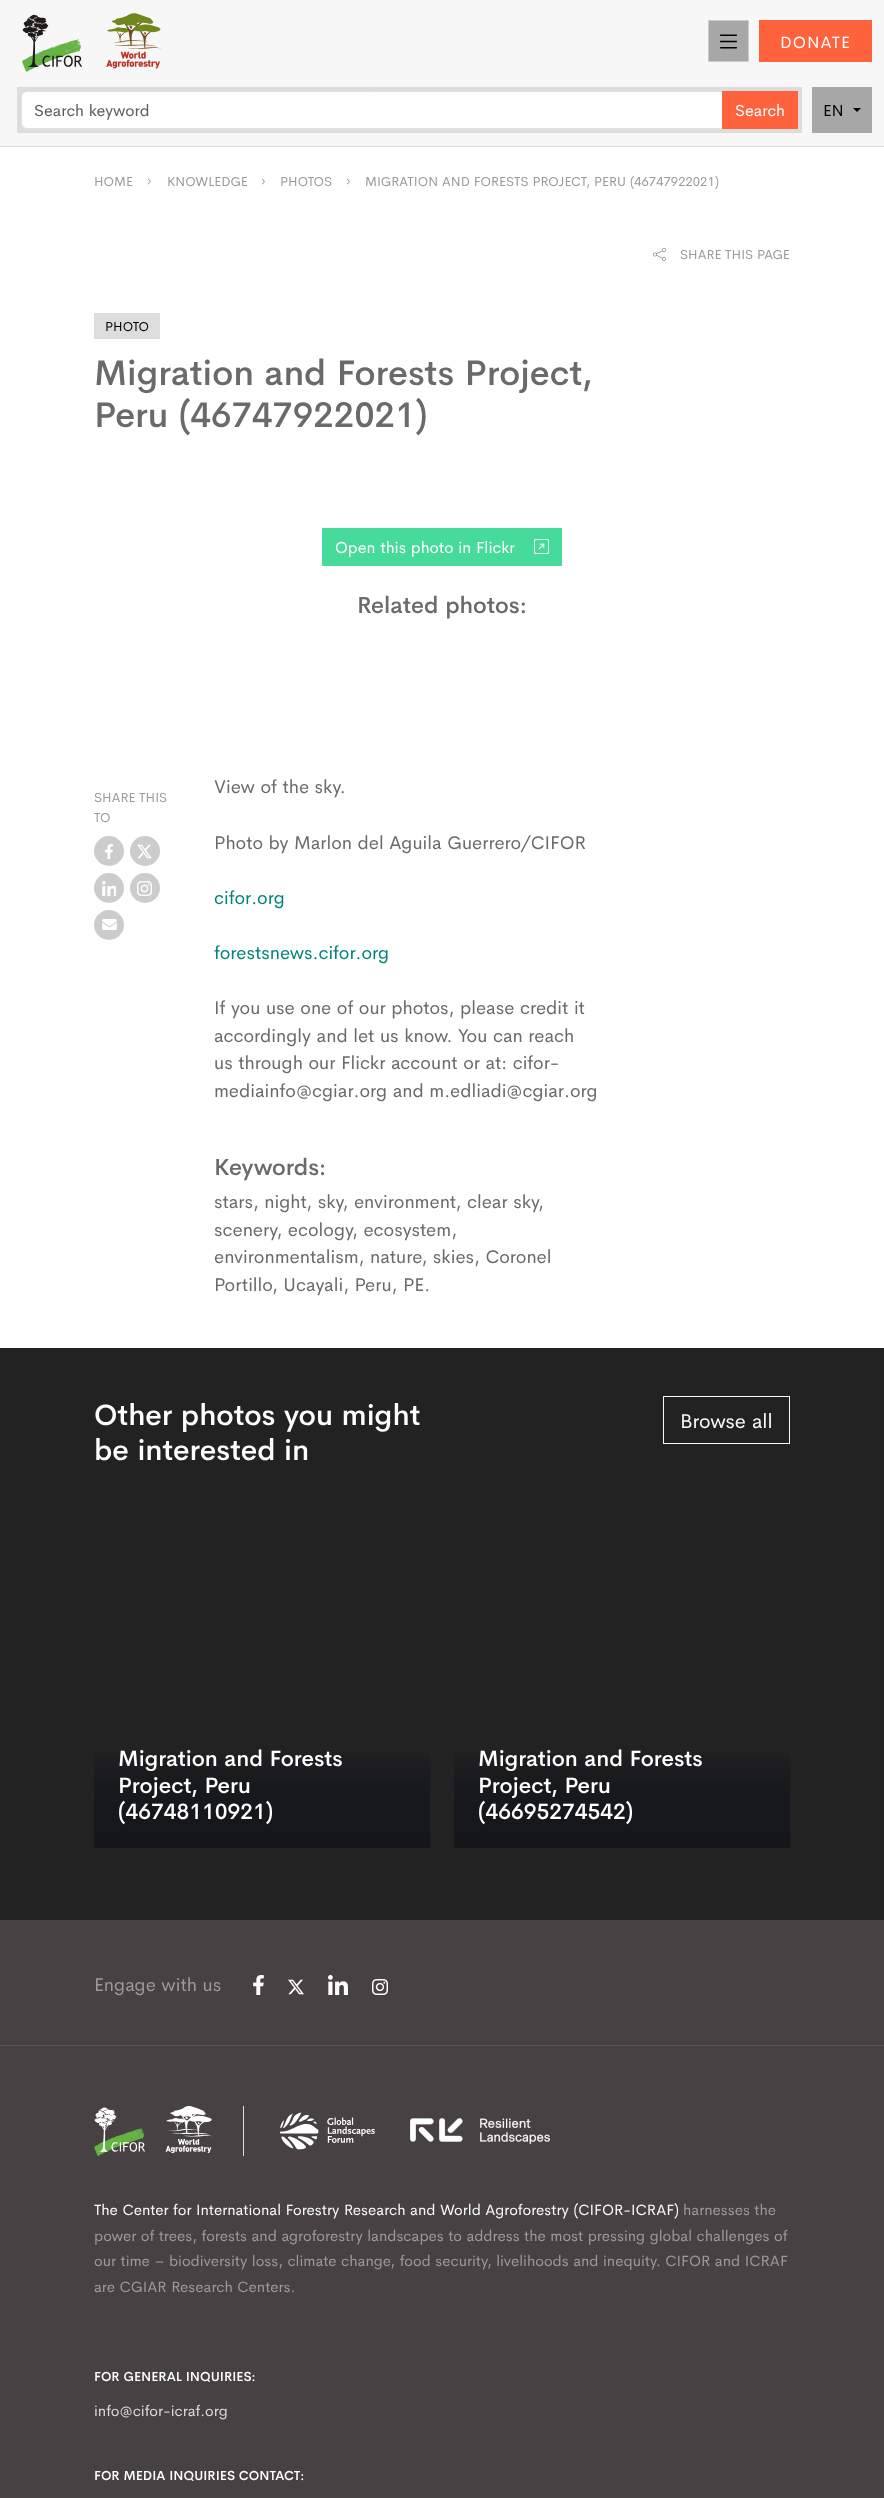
async function draw(canvas) {
  canvas.width = 884
  canvas.height = 2498
  const ctx = canvas.getContext('2d')
  ctx.miterLimit = 4
  ctx.fontKerning = 'normal'
  async function loadImage(src) {
    const img = new Image()
    img.src = src
    await img.decode()
    return img
  }
  let gradient

  ctx.fillStyle = '#fff'
  ctx.fillRect(0, 0, 884, 2498)
  ctx.fillStyle = '#f7f7f7'
  ctx.fillRect(0, 0, 884, 146)
  ctx.fillStyle = '#ddd'
  ctx.fillRect(0, 146, 884, 1)
  ctx.drawImage(await loadImage('image0.png'), 22, 13, 140, 59)
  ctx.fillStyle = '#a7a7a7'
  ctx.beginPath()
  ctx.rect(708.5, 20.5, 40, 41)
  ctx.fill()
  ctx.strokeStyle = '#ccc'
  ctx.stroke()
  ctx.drawImage(await loadImage('image1.png'), 720, 34, 17, 15)
  ctx.fillStyle = '#ff633d'
  ctx.fillRect(759, 20, 113, 42)
  ctx.letterSpacing = '1px'
  ctx.font = '16.5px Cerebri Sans'
  ctx.fillStyle = '#fff'
  ctx.fillText('DONATE', 780, 48)
  ctx.fillStyle = '#ddd'
  ctx.fillRect(17, 87, 785, 46)
  ctx.fillStyle = '#fff'
  ctx.beginPath()
  ctx.roundRect(21.5, 91.5, 701, 37, [5.5, 0, 0, 5.5])
  ctx.fill()
  ctx.strokeStyle = '#dee2e6'
  ctx.stroke()
  ctx.letterSpacing = '0px'
  ctx.font = '16px Cerebri Sans'
  ctx.fillStyle = '#595c5f'
  ctx.fillText('Search keyword', 34, 116)
  ctx.fillStyle = '#ff633d'
  ctx.fillRect(722, 91, 76, 38)
  ctx.fillStyle = '#fff'
  ctx.fillText('Search', 735, 116)
  ctx.fillStyle = '#a7a7a7'
  ctx.fillRect(812, 87, 60, 46)
  ctx.fillStyle = '#000'
  ctx.fillText('EN', 823, 116)
  ctx.beginPath()
  ctx.moveTo(853, 108)
  ctx.lineTo(861, 108)
  ctx.lineTo(857, 112)
  ctx.closePath()
  ctx.fill()
  ctx.font = '13px Cerebri Sans'
  ctx.fillStyle = '#9a9a9a'
  ctx.fillText('HOME', 94, 186)
  ctx.font = '15px Cerebri Sans'
  ctx.fillText('›', 147, 186)
  ctx.font = '13px Cerebri Sans'
  ctx.fillText('KNOWLEDGE', 167, 186)
  ctx.font = '15px Cerebri Sans'
  ctx.fillText('›', 261, 186)
  ctx.font = '13px Cerebri Sans'
  ctx.fillText('PHOTOS', 280, 186)
  ctx.font = '15px Cerebri Sans'
  ctx.fillText('›', 346, 186)
  ctx.font = '13px Cerebri Sans'
  ctx.fillText('MIGRATION AND FORESTS PROJECT, PERU (46747922021)', 365, 186)
  ctx.drawImage(await loadImage('image2.png'), 653, 248, 13, 13)
  ctx.fillText('SHARE THIS PAGE', 680, 259)
  ctx.fillStyle = '#ddd'
  ctx.fillRect(94, 313, 66, 26)
  ctx.fillStyle = '#000'
  ctx.fillText('PHOTO', 105, 331)
  ctx.font = '500 35.25px Cerebri Sans'
  ctx.fillStyle = '#6a6a6a'
  ctx.fillText('Migration and Forests Project,', 94, 385)
  ctx.fillText('Peru (46747922021)', 94, 427)
  ctx.fillStyle = '#46db9b'
  ctx.fillRect(322, 528, 240, 38)
  ctx.font = '16px Cerebri Sans'
  ctx.fillStyle = '#fff'
  ctx.fillText('Open this photo in Flickr', 335, 553)
  ctx.drawImage(await loadImage('image3.png'), 534, 539, 15, 15)
  ctx.font = '500 23px Cerebri Sans'
  ctx.fillStyle = '#6a6a6a'
  ctx.fillText('Related photos:', 357, 613)
  ctx.font = '13px Cerebri Sans'
  ctx.fillStyle = '#9a9a9a'
  ctx.fillText('SHARE THIS', 94, 802)
  ctx.fillText('TO', 94, 822)
  ctx.fillStyle = '#ccc'
  ctx.beginPath()
  ctx.arc(109, 851, 15, 0, 2 * Math.PI)
  ctx.fill()
  ctx.drawImage(await loadImage('image4.png'), 105, 844, 8, 15)
  ctx.beginPath()
  ctx.arc(145, 851, 15, 0, 2 * Math.PI)
  ctx.fill()
  ctx.drawImage(await loadImage('image5.png'), 137, 844, 15, 15)
  ctx.beginPath()
  ctx.arc(109, 888, 15, 0, 2 * Math.PI)
  ctx.fill()
  ctx.drawImage(await loadImage('image6.png'), 102, 881, 14, 15)
  ctx.beginPath()
  ctx.arc(145, 888, 15, 0, 2 * Math.PI)
  ctx.fill()
  ctx.drawImage(await loadImage('image7.png'), 137, 881, 15, 15)
  ctx.beginPath()
  ctx.arc(109, 925, 15, 0, 2 * Math.PI)
  ctx.fill()
  ctx.drawImage(await loadImage('image8.png'), 102, 919, 15, 11)
  ctx.font = '18.4px Cerebri Sans'
  ctx.fillStyle = '#6a6a6a'
  ctx.fillText('View of the sky.', 214, 793)
  ctx.fillText('Photo by Marlon del Aguila Guerrero/CIFOR', 214, 849)
  ctx.fillStyle = '#00847a'
  ctx.fillText('cifor.org', 214, 904)
  ctx.fillText('forestsnews.cifor.org', 214, 959)
  ctx.fillStyle = '#6a6a6a'
  ctx.fillText('If you use one of our photos, please credit it', 214, 1014)
  ctx.fillText('accordingly and let us know. You can reach', 214, 1042)
  ctx.fillText('us through our Flickr account or at: cifor-', 214, 1069)
  ctx.fillText('mediainfo@cgiar.org and m.edliadi@cgiar.org', 214, 1097)
  ctx.font = '500 23px Cerebri Sans'
  ctx.fillText('Keywords:', 214, 1175)
  ctx.font = '18.4px Cerebri Sans'
  ctx.fillText('stars, night, sky, environment, clear sky,', 214, 1208)
  ctx.fillText('scenery, ecology, ecosystem,', 214, 1236)
  ctx.fillText('environmentalism, nature, skies, Coronel', 214, 1263)
  ctx.fillText('Portillo, Ucayali, Peru, PE.', 214, 1291)
  ctx.fillStyle = '#222'
  ctx.fillRect(0, 1348, 884, 572)
  ctx.font = '500 29.2px Cerebri Sans'
  ctx.fillStyle = '#fff'
  ctx.fillText('Other photos you might', 94, 1425)
  ctx.fillText('be interested in', 94, 1460)
  ctx.strokeStyle = '#f8f9fa'
  ctx.strokeRect(663.5, 1396.5, 126, 47)
  ctx.font = '20px Cerebri Sans'
  ctx.fillStyle = '#f8f9fa'
  ctx.fillText('Browse all', 680, 1428)
  gradient = ctx.createLinearGradient(262, 1744, 262, 1848)
  gradient.addColorStop(0, '#222')
  gradient.addColorStop(0.4, '#18191c')
  gradient.addColorStop(1, '#15161a')
  ctx.fillStyle = gradient
  ctx.fillRect(94, 1754, 336, 94)
  ctx.font = '500 22px Cerebri Sans'
  ctx.fillStyle = '#fff'
  ctx.fillText('Migration and Forests', 118, 1766)
  ctx.fillText('Project, Peru', 118, 1793)
  ctx.fillText('(46748110921)', 118, 1819)
  gradient = ctx.createLinearGradient(622, 1744, 622, 1848)
  gradient.addColorStop(0, '#222')
  gradient.addColorStop(0.4, '#18191c')
  gradient.addColorStop(1, '#15161a')
  ctx.fillStyle = gradient
  ctx.fillRect(454, 1754, 336, 94)
  ctx.fillStyle = '#fff'
  ctx.fillText('Migration and Forests', 478, 1766)
  ctx.fillText('Project, Peru', 478, 1793)
  ctx.fillText('(46695274542)', 478, 1819)
  ctx.fillStyle = '#474143'
  ctx.fillRect(0, 1920, 884, 578)
  ctx.fillStyle = '#5a5456'
  ctx.fillRect(0, 2045, 884, 1)
  ctx.font = '18.4px Cerebri Sans'
  ctx.fillStyle = '#9a9a9a'
  ctx.fillText('Engage with us', 94, 1991)
  ctx.drawImage(await loadImage('image9.png'), 253, 1975, 11, 20)
  ctx.drawImage(await loadImage('image10.png'), 288, 1979, 16, 16)
  ctx.drawImage(await loadImage('image11.png'), 328, 1975, 20, 20)
  ctx.drawImage(await loadImage('image12.png'), 372, 1979, 16, 16)
  ctx.drawImage(await loadImage('image13.png'), 94, 2106, 118, 50)
  ctx.fillStyle = '#ddd'
  ctx.fillRect(243, 2106, 1, 50)
  ctx.drawImage(await loadImage('image14.png'), 280, 2112, 95, 38)
  ctx.drawImage(await loadImage('image15.png'), 410, 2118, 140, 26)
  ctx.font = '15px Cerebri Sans'
  ctx.fillStyle = '#f8f9fa'
  ctx.fillText('The Center for International Forestry Research and World Agroforestry (CIFOR-ICRAF)', 94, 2215)
  ctx.fillStyle = '#9a9a9a'
  ctx.fillText('harnesses the', 683, 2215)
  ctx.fillText('power of trees, forests and agroforestry landscapes to address the most pressing global challenges of', 94, 2241)
  ctx.fillText('our time – biodiversity loss, climate change, food security, livelihoods and inequity. CIFOR and ICRAF', 94, 2266)
  ctx.fillText('are CGIAR Research Centers.', 94, 2292)
  ctx.font = '500 13px Cerebri Sans'
  ctx.fillStyle = '#fff'
  ctx.fillText('FOR GENERAL INQUIRIES:', 94, 2381)
  ctx.font = '15px Cerebri Sans'
  ctx.fillStyle = '#dbdbdb'
  ctx.fillText('info@cifor-icraf.org', 94, 2416)
  ctx.font = '500 13px Cerebri Sans'
  ctx.fillStyle = '#fff'
  ctx.fillText('FOR MEDIA INQUIRIES CONTACT:', 94, 2480)
}

draw(document.querySelector('canvas'))
